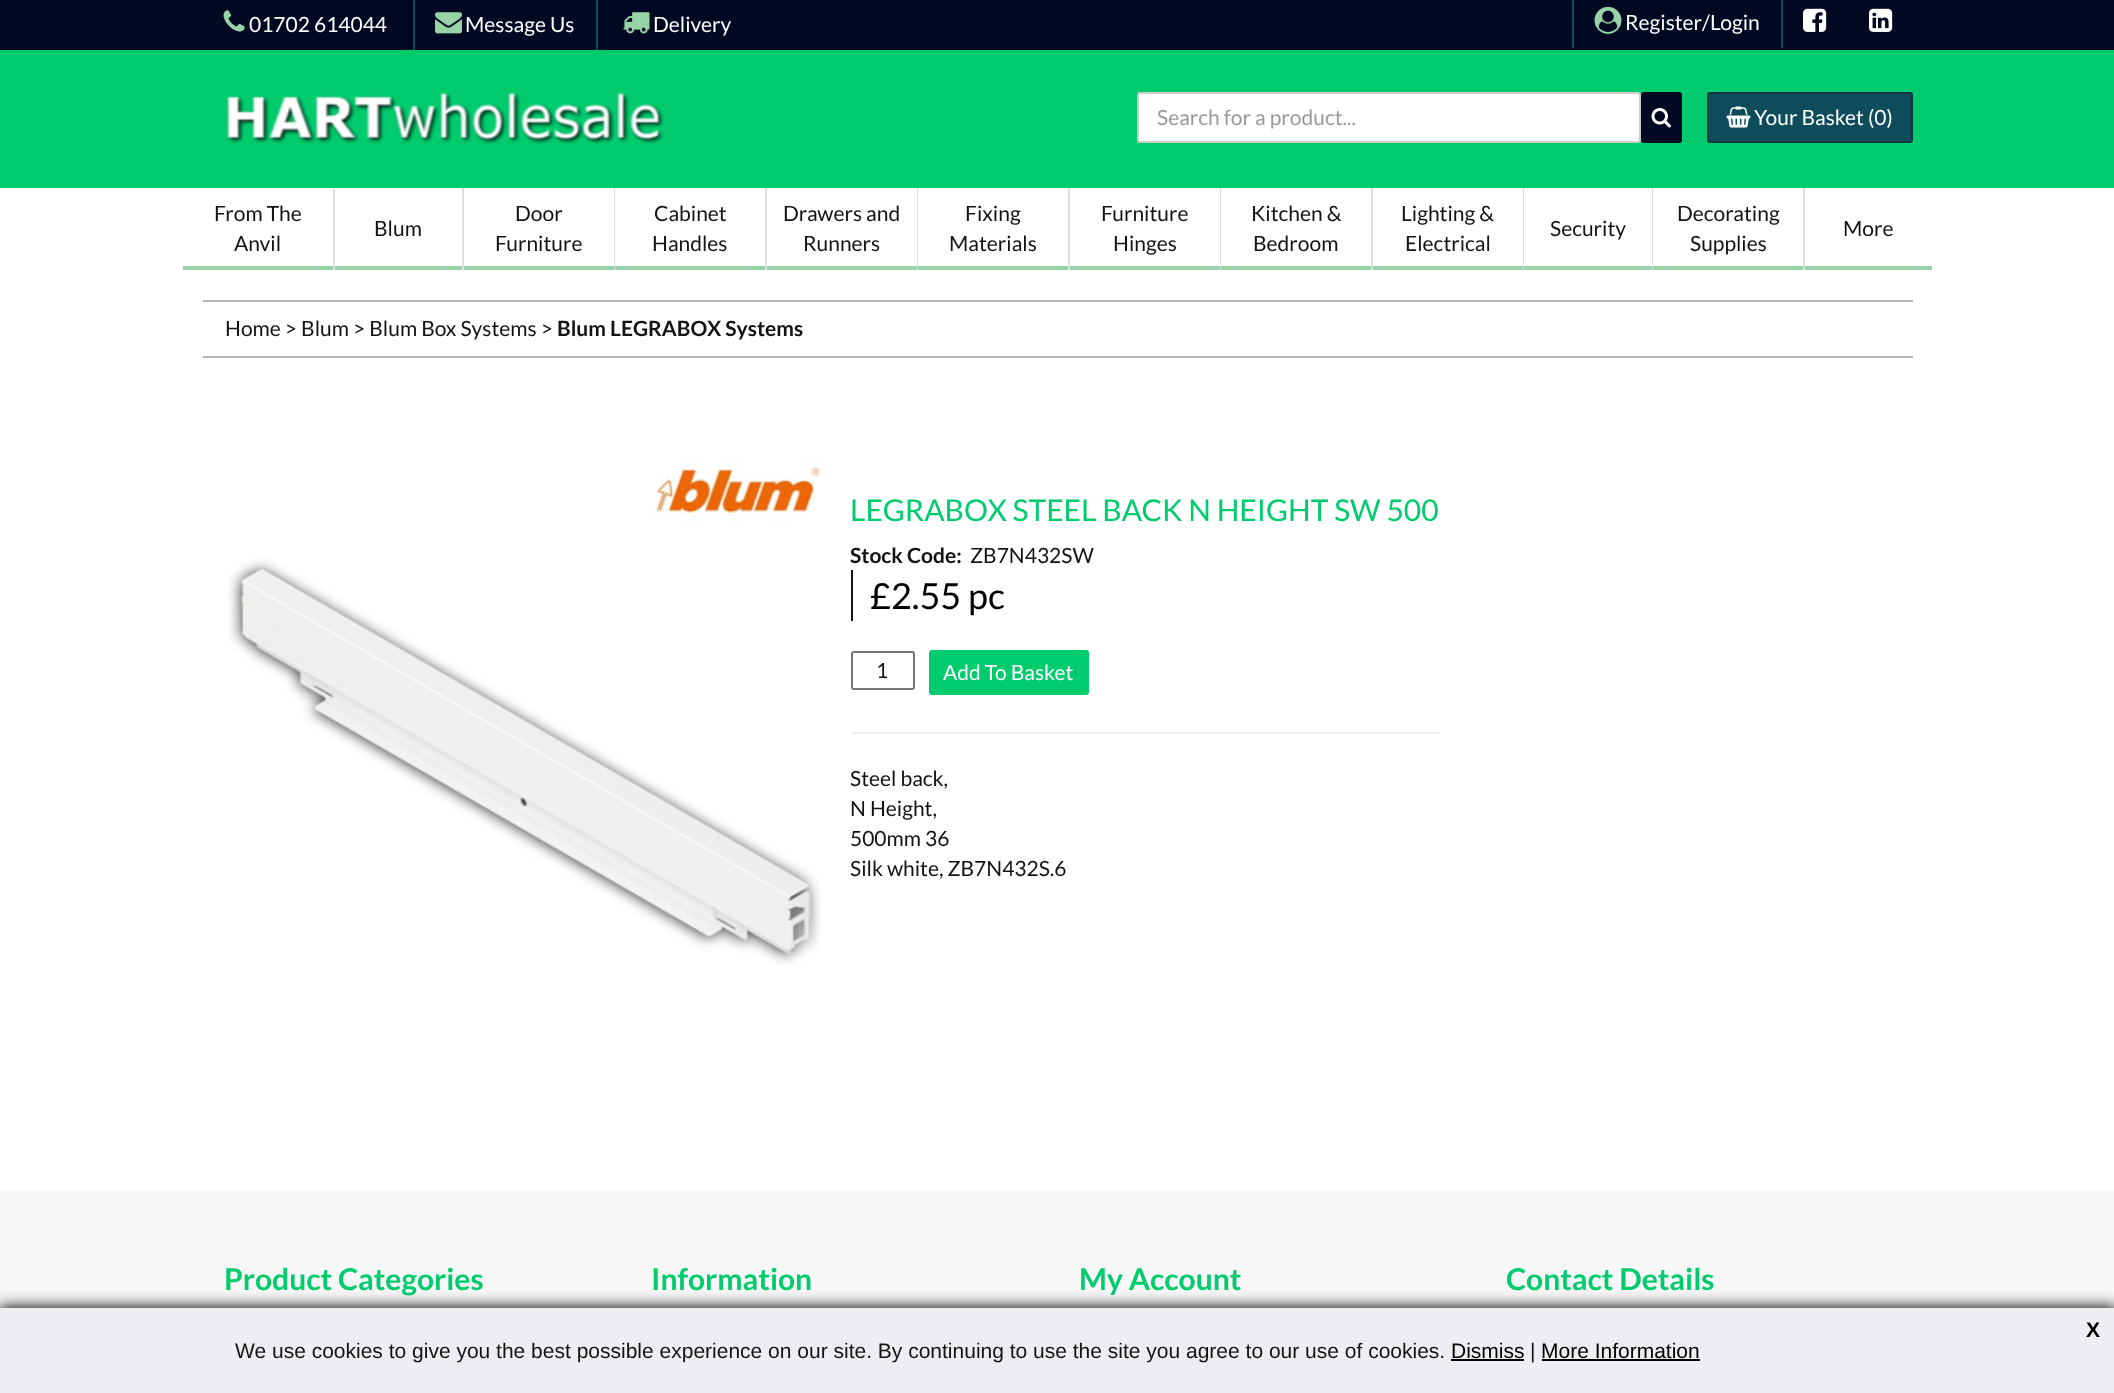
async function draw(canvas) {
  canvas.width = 2114
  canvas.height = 1393
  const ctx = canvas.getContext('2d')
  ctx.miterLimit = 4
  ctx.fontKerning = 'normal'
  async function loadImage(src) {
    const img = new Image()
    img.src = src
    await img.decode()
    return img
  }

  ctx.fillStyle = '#fff'
  ctx.fillRect(0, 0, 2114, 1393)
  ctx.fillStyle = '#010822'
  ctx.fillRect(0, 0, 2114, 50)
  ctx.drawImage(await loadImage('image0.png'), 223, 10, 22, 22)
  ctx.font = '21px Lato'
  ctx.fillStyle = '#fff'
  ctx.fillText('01702 614044', 249, 32)
  ctx.fillStyle = '#0d4c5b'
  ctx.fillRect(596, 0, 2, 50)
  ctx.fillRect(413, 0, 2, 50)
  ctx.drawImage(await loadImage('image1.png'), 435, 12, 27, 22)
  ctx.fillStyle = '#fff'
  ctx.fillText('Message Us', 465, 32)
  ctx.drawImage(await loadImage('image2.png'), 623, 12, 27, 22)
  ctx.fillText('Delivery', 653, 32)
  ctx.fillStyle = '#0d4c5b'
  ctx.fillRect(1781, 0, 2, 48)
  ctx.fillRect(1572, 0, 2, 48)
  ctx.drawImage(await loadImage('image3.png'), 1594, 6, 28, 28)
  ctx.fillStyle = '#fff'
  ctx.fillText('Register/Login', 1625, 30)
  ctx.drawImage(await loadImage('image4.png'), 1803, 8, 24, 24)
  ctx.drawImage(await loadImage('image5.png'), 1869, 8, 24, 24)
  ctx.fillStyle = '#00cc6e'
  ctx.fillRect(0, 50, 2114, 138)
  ctx.drawImage(await loadImage('image6.png'), 226, 92, 438, 52)
  ctx.fillStyle = '#fff'
  ctx.beginPath()
  ctx.roundRect(1138, 93, 502, 49, 2)
  ctx.fill()
  ctx.strokeStyle = '#ccc'
  ctx.lineWidth = 2
  ctx.stroke()
  ctx.fillStyle = '#999'
  ctx.fillText('Search for a product...', 1157, 125)
  ctx.fillStyle = '#010822'
  ctx.beginPath()
  ctx.roundRect(1641, 92, 41, 51, 3)
  ctx.fill()
  ctx.drawImage(await loadImage('image7.png'), 1651, 108, 20, 20)
  ctx.fillStyle = '#0d4c5b'
  ctx.beginPath()
  ctx.roundRect(1708, 93, 204, 49, 2)
  ctx.fill()
  ctx.strokeStyle = '#0a3945'
  ctx.stroke()
  ctx.drawImage(await loadImage('image8.png'), 1726, 106, 25, 22)
  ctx.fillStyle = '#fff'
  ctx.fillText('Your Basket (0)', 1754, 125)
  ctx.fillStyle = '#ddd'
  ctx.fillRect(333, 189, 2, 81)
  ctx.fillStyle = '#131313'
  ctx.fillText('From The', 214, 221)
  ctx.fillText('Anvil', 234, 251)
  ctx.fillStyle = '#96d4a5'
  ctx.fillRect(183, 266, 150, 4)
  ctx.fillStyle = '#ddd'
  ctx.fillRect(462, 188, 2, 82)
  ctx.fillStyle = '#131313'
  ctx.fillText('Blum', 374, 236)
  ctx.fillStyle = '#96d4a5'
  ctx.fillRect(335, 266, 127, 4)
  ctx.fillStyle = '#ddd'
  ctx.fillRect(614, 188, 1, 82)
  ctx.fillStyle = '#131313'
  ctx.fillText('Door', 515, 221)
  ctx.fillText('Furniture', 495, 251)
  ctx.fillStyle = '#96d4a5'
  ctx.fillRect(464, 266, 150, 4)
  ctx.fillStyle = '#ddd'
  ctx.fillRect(765, 188, 2, 82)
  ctx.fillStyle = '#131313'
  ctx.fillText('Cabinet', 654, 221)
  ctx.fillText('Handles', 652, 251)
  ctx.fillStyle = '#96d4a5'
  ctx.fillRect(615, 266, 150, 4)
  ctx.fillStyle = '#ddd'
  ctx.fillRect(917, 188, 1, 82)
  ctx.fillStyle = '#131313'
  ctx.fillText('Drawers and', 783, 221)
  ctx.fillText('Runners', 803, 251)
  ctx.fillStyle = '#96d4a5'
  ctx.fillRect(767, 266, 150, 4)
  ctx.fillStyle = '#ddd'
  ctx.fillRect(1068, 188, 2, 82)
  ctx.fillStyle = '#131313'
  ctx.fillText('Fixing', 965, 221)
  ctx.fillText('Materials', 949, 251)
  ctx.fillStyle = '#96d4a5'
  ctx.fillRect(918, 266, 150, 4)
  ctx.fillStyle = '#ddd'
  ctx.fillRect(1220, 188, 1, 82)
  ctx.fillStyle = '#131313'
  ctx.fillText('Furniture', 1101, 221)
  ctx.fillText('Hinges', 1113, 251)
  ctx.fillStyle = '#96d4a5'
  ctx.fillRect(1070, 266, 150, 4)
  ctx.fillStyle = '#ddd'
  ctx.fillRect(1371, 188, 2, 82)
  ctx.fillStyle = '#131313'
  ctx.fillText('Kitchen &', 1251, 221)
  ctx.fillText('Bedroom', 1253, 251)
  ctx.fillStyle = '#96d4a5'
  ctx.fillRect(1221, 266, 150, 4)
  ctx.fillStyle = '#ddd'
  ctx.fillRect(1523, 188, 1, 82)
  ctx.fillStyle = '#131313'
  ctx.fillText('Lighting &', 1401, 221)
  ctx.fillText('Electrical', 1405, 251)
  ctx.fillStyle = '#96d4a5'
  ctx.fillRect(1373, 266, 150, 4)
  ctx.fillStyle = '#ddd'
  ctx.fillRect(1652, 188, 1, 82)
  ctx.fillStyle = '#131313'
  ctx.fillText('Security', 1550, 236)
  ctx.fillStyle = '#96d4a5'
  ctx.fillRect(1524, 266, 128, 4)
  ctx.fillStyle = '#ddd'
  ctx.fillRect(1803, 188, 2, 82)
  ctx.fillStyle = '#131313'
  ctx.fillText('Decorating', 1677, 221)
  ctx.fillText('Supplies', 1690, 251)
  ctx.fillStyle = '#96d4a5'
  ctx.fillRect(1653, 266, 150, 4)
  ctx.fillStyle = '#131313'
  ctx.fillText('More', 1843, 236)
  ctx.fillStyle = '#96d4a5'
  ctx.fillRect(1805, 266, 127, 4)
  ctx.fillStyle = '#b7b7b7'
  ctx.fillRect(203, 300, 1710, 2)
  ctx.fillRect(203, 356, 1710, 2)
  ctx.fillStyle = '#131313'
  ctx.fillText('Home > Blum > Blum Box Systems >', 225, 336)
  ctx.font = 'bold 21px Lato'
  ctx.fillText('Blum LEGRABOX Systems', 557, 336)
  ctx.drawImage(await loadImage('image9.png'), 228, 461, 597, 504)
  ctx.font = '30px Lato'
  ctx.fillStyle = '#00cc6e'
  ctx.fillText('LEGRABOX STEEL BACK N HEIGHT SW 500', 850, 521)
  ctx.font = 'bold 21px Lato'
  ctx.fillStyle = '#131313'
  ctx.fillText('Stock Code:', 850, 563)
  ctx.font = '21px Lato'
  ctx.fillText('ZB7N432SW', 970, 563)
  ctx.fillRect(851, 570, 2, 51)
  ctx.font = '36px Lato'
  ctx.fillStyle = '#000'
  ctx.fillText('£2.55 pc', 870, 609)
  ctx.beginPath()
  ctx.roundRect(852, 652, 62, 37, 2)
  ctx.strokeStyle = '#767676'
  ctx.stroke()
  ctx.font = '21px Lato'
  ctx.fillStyle = '#131313'
  ctx.fillText('1', 876, 678)
  ctx.fillStyle = '#00cc6e'
  ctx.beginPath()
  ctx.roundRect(929, 650, 160, 45, 3)
  ctx.fill()
  ctx.fillStyle = '#fff'
  ctx.fillText('Add To Basket', 943, 680)
  ctx.fillStyle = '#eee'
  ctx.fillRect(851, 732, 588, 2)
  ctx.fillStyle = '#131313'
  ctx.fillText('Steel back,', 850, 786)
  ctx.fillText('N Height,', 850, 816)
  ctx.fillText('500mm 36', 850, 846)
  ctx.fillText('Silk white, ZB7N432S.6', 850, 876)
  ctx.fillStyle = '#f7f7f7'
  ctx.fillRect(0, 1190, 2114, 118)
  ctx.font = 'bold 30px Lato'
  ctx.fillStyle = '#00cc6e'
  ctx.fillText('Product Categories', 224, 1290)
  ctx.fillText('Information', 651, 1290)
  ctx.fillText('My Account', 1079, 1290)
  ctx.fillText('Contact Details', 1506, 1290)
  ctx.fillStyle = '#000'
  ctx.filter = 'blur(7.5px)'
  ctx.beginPath()
  ctx.rect(-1, 1307, 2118, 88)
  ctx.fill()
  ctx.filter = 'none'
  ctx.fillStyle = '#eeeef2'
  ctx.fillRect(0, 1308, 2114, 85)
  ctx.font = 'bold 21px Liberation Sans'
  ctx.fillStyle = '#000'
  ctx.fillText('X', 2086, 1337)
  ctx.font = '21px Liberation Sans'
  ctx.fillStyle = '#131313'
  ctx.fillText('We use cookies to give you the best possible experience on our site. By continuing to use the site you agree to our use of cookies.', 235, 1358)
  ctx.fillStyle = '#000'
  ctx.fillText('Dismiss', 1451, 1358)
  ctx.fillRect(1451, 1359, 73, 2)
  ctx.fillStyle = '#131313'
  ctx.fillText('|', 1530, 1358)
  ctx.fillStyle = '#000'
  ctx.fillText('More Information', 1541, 1358)
  ctx.fillRect(1542, 1359, 158, 2)
}

draw(document.querySelector('canvas'))
